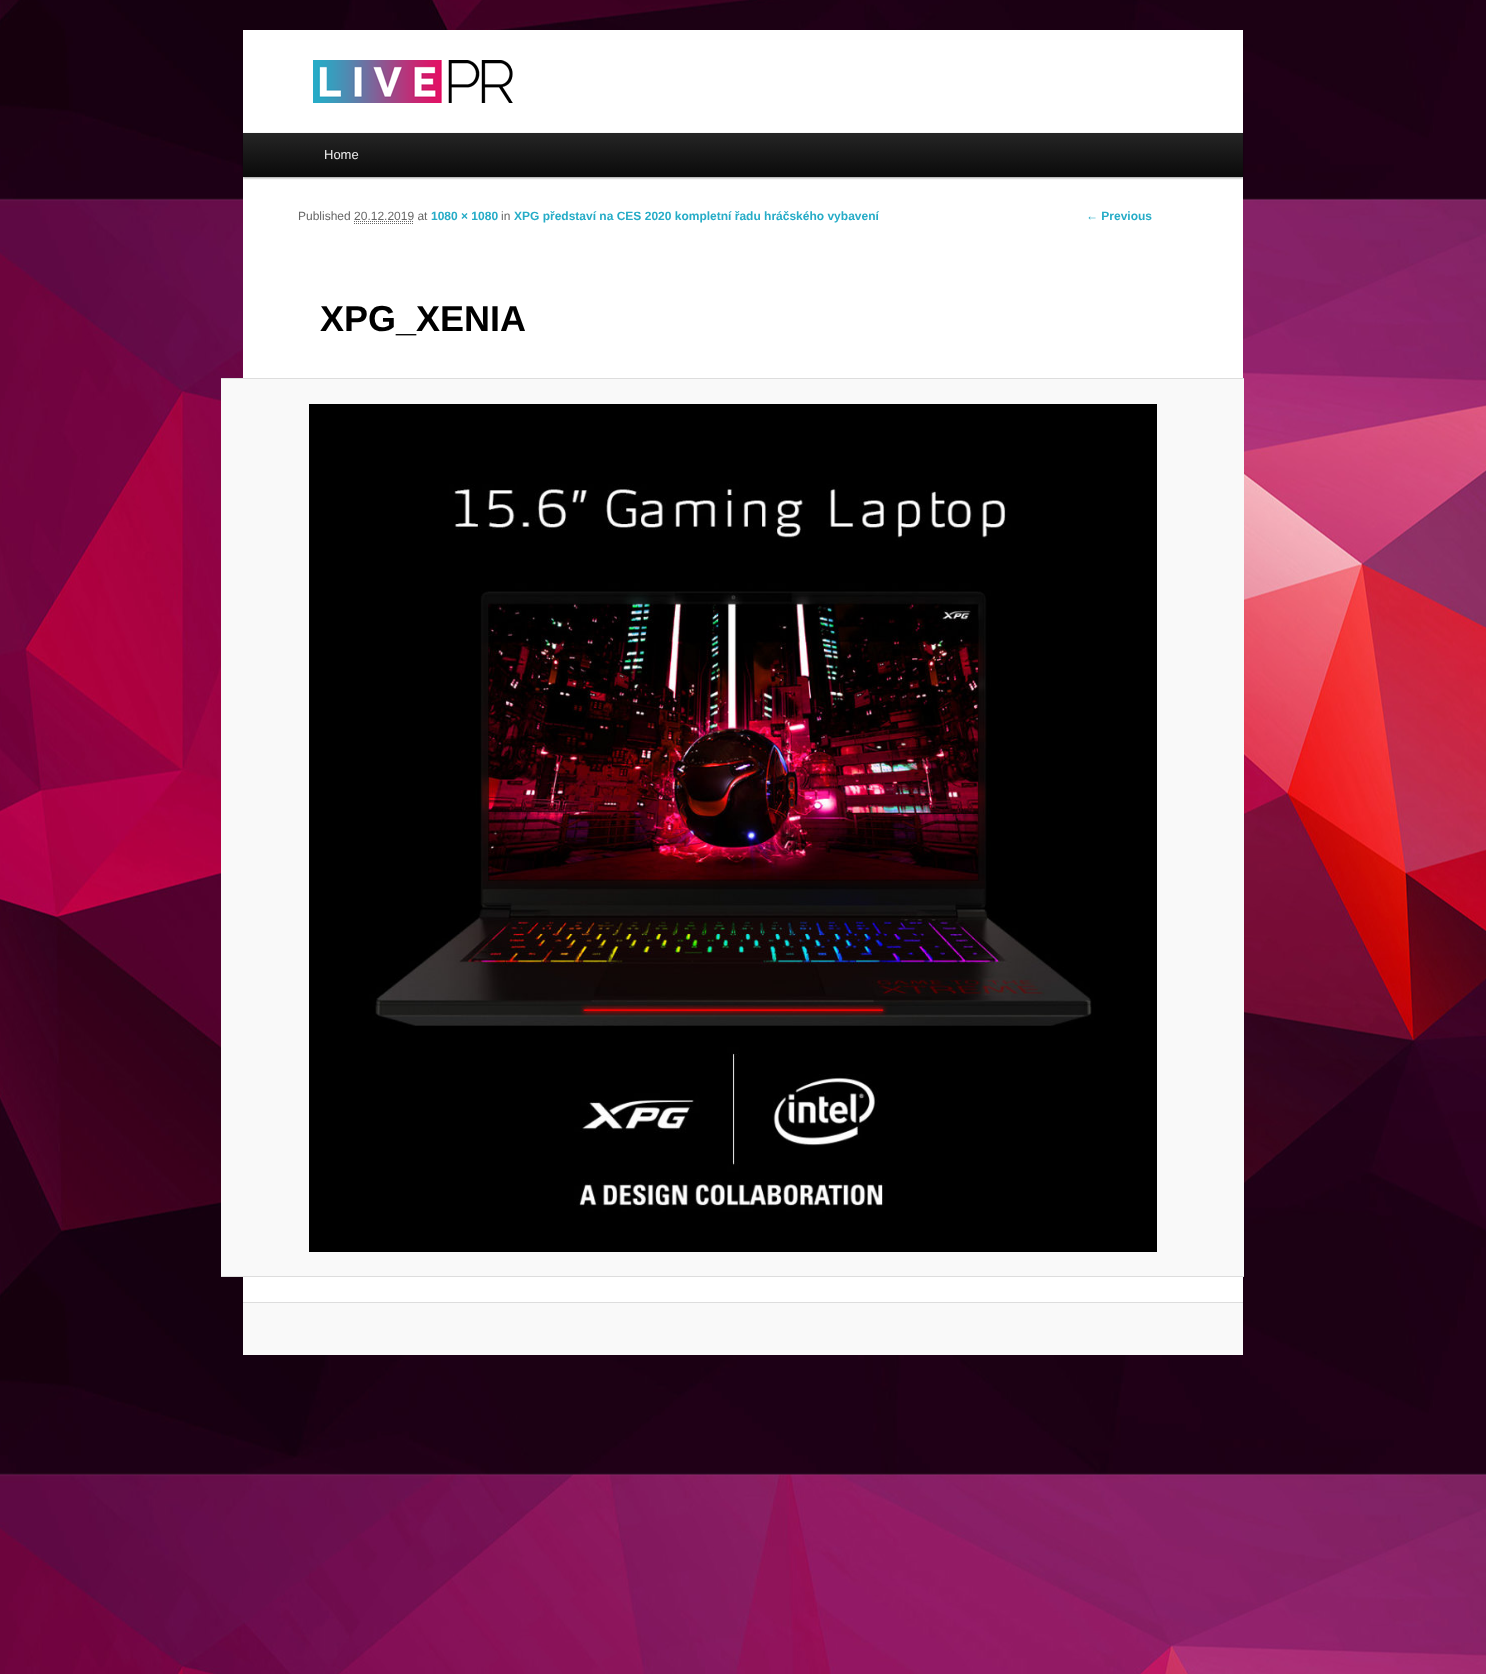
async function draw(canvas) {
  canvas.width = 1486
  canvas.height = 1674
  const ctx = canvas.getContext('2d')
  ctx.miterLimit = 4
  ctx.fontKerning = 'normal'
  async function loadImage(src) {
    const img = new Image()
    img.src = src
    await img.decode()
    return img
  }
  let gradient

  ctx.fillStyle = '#fff'
  ctx.fillRect(0, 0, 1486, 1674)
  ctx.drawImage(await loadImage('image0.png'), 0, 0, 1486, 1674)
  ctx.fillRect(243, 30, 1000, 1272)
  ctx.drawImage(await loadImage('image1.png'), 313, 60, 200, 43)
  ctx.fillStyle = '#00000066'
  ctx.filter = 'blur(1px)'
  ctx.beginPath()
  ctx.rect(243, 134, 1000, 44)
  ctx.fill()
  ctx.filter = 'none'
  gradient = ctx.createLinearGradient(743, 133, 743, 177)
  gradient.addColorStop(0, '#252525')
  gradient.addColorStop(1, '#0a0a0a')
  ctx.fillStyle = gradient
  ctx.fillRect(243, 133, 1000, 44)
  ctx.font = '13px Liberation Sans'
  ctx.fillStyle = '#eee'
  ctx.fillText('Home', 324, 159)
  ctx.font = '12px Liberation Sans'
  ctx.fillStyle = '#666'
  ctx.fillText('Published 20.12.2019 at', 298, 220)
  ctx.font = 'bold 12px Liberation Sans'
  ctx.fillStyle = '#26acc7'
  ctx.fillText('1080 × 1080', 431, 220)
  ctx.font = '12px Liberation Sans'
  ctx.fillStyle = '#666'
  ctx.fillText('in', 501, 220)
  ctx.font = 'bold 12px Liberation Sans'
  ctx.fillStyle = '#26acc7'
  ctx.fillText('XPG představí na CES 2020 kompletní řadu hráčského vybavení', 514, 220)
  ctx.beginPath()
  ctx.moveTo(354, 223.5)
  ctx.lineTo(414, 223.5)
  ctx.moveTo(354, 221.5)
  ctx.lineTo(414, 221.5)
  ctx.strokeStyle = '#666'
  ctx.setLineDash([1, 1])
  ctx.stroke()
  ctx.font = 'bold 36px Liberation Sans'
  ctx.fillStyle = '#000'
  ctx.fillText('XPG_XENIA', 320, 331)
  ctx.fillStyle = '#f9f9f9'
  ctx.fillRect(221, 379, 1023, 897)
  ctx.fillStyle = '#ddd'
  ctx.fillRect(221, 378, 1023, 1)
  ctx.fillRect(221, 1276, 1023, 1)
  ctx.drawImage(await loadImage('image2.png'), 309, 404, 848, 848)
  ctx.font = 'bold 12px Liberation Sans'
  ctx.fillStyle = '#26acc7'
  ctx.fillText('← Previous', 1086, 220)
  ctx.fillStyle = '#f9f9f9'
  ctx.fillRect(243, 1303, 1000, 52)
  ctx.fillStyle = '#ddd'
  ctx.fillRect(243, 1302, 1000, 1)
}

draw(document.querySelector('canvas'))
